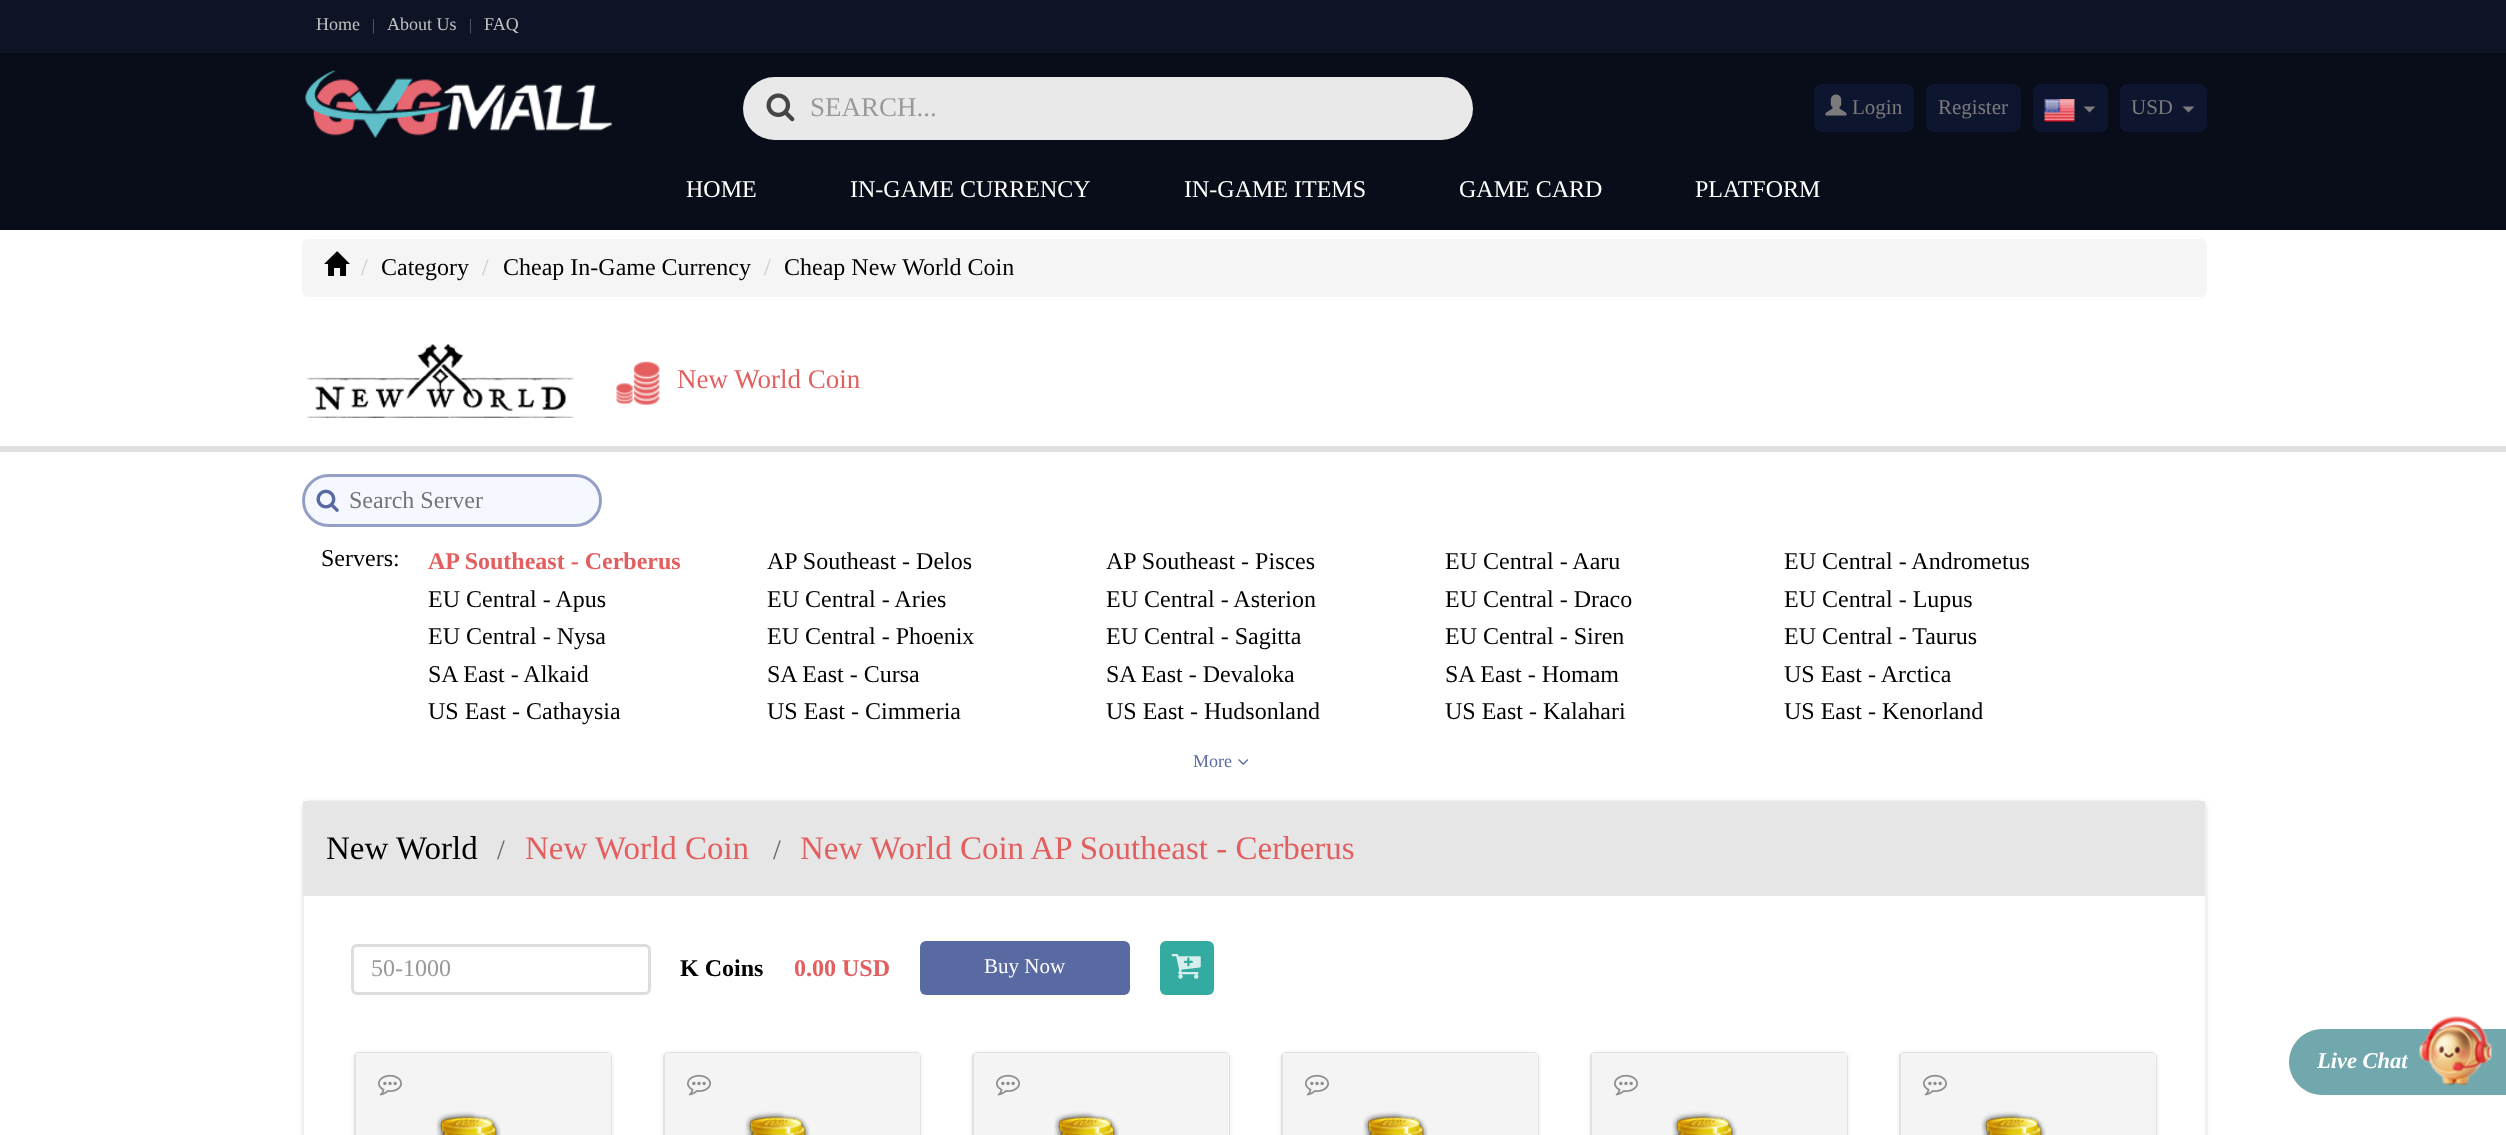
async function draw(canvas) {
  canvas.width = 2506
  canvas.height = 1135
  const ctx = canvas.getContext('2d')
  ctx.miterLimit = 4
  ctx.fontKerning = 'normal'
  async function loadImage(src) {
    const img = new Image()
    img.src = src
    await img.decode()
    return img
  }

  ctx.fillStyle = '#fff'
  ctx.fillRect(0, 0, 2506, 1135)
  ctx.fillStyle = '#090d19'
  ctx.fillRect(0, 53, 2506, 177)
  ctx.fillStyle = '#0e1325'
  ctx.fillRect(0, 0, 2506, 53)
  ctx.font = '18px Liberation Serif'
  ctx.fillStyle = '#c1c1c1'
  ctx.fillText('Home', 316, 30)
  ctx.font = '16px Liberation Serif'
  ctx.fillStyle = '#60636c'
  ctx.fillText('|', 372, 30)
  ctx.font = '18px Liberation Serif'
  ctx.fillStyle = '#c1c1c1'
  ctx.fillText('About Us', 387, 30)
  ctx.font = '16px Liberation Serif'
  ctx.fillStyle = '#60636c'
  ctx.fillText('|', 469, 30)
  ctx.font = '18px Liberation Serif'
  ctx.fillStyle = '#c1c1c1'
  ctx.fillText('FAQ', 484, 30)
  ctx.drawImage(await loadImage('image0.png'), 305, 70, 307, 68)
  ctx.fillStyle = '#e9e9e9'
  ctx.beginPath()
  ctx.roundRect(743, 77, 730, 63, 31.5)
  ctx.fill()
  ctx.drawImage(await loadImage('image1.png'), 766, 93, 29, 29)
  ctx.font = '27px Liberation Serif'
  ctx.fillStyle = '#999'
  ctx.fillText('SEARCH...', 810, 116)
  ctx.fillStyle = '#0e162f'
  ctx.beginPath()
  ctx.roundRect(1814, 84, 100, 48, 8)
  ctx.fill()
  ctx.drawImage(await loadImage('image2.png'), 1825, 94, 22, 22)
  ctx.font = '21px Liberation Serif'
  ctx.fillStyle = '#7b7b7b'
  ctx.fillText('Login', 1852, 114)
  ctx.fillStyle = '#0e162f'
  ctx.beginPath()
  ctx.roundRect(1926, 84, 95, 48, 8)
  ctx.fill()
  ctx.fillStyle = '#7b7b7b'
  ctx.fillText('Register', 1938, 114)
  ctx.fillStyle = '#0e162f'
  ctx.beginPath()
  ctx.roundRect(2033, 84, 75, 48, 8)
  ctx.fill()
  ctx.drawImage(await loadImage('image3.png'), 2044, 99, 31, 23)
  ctx.fillStyle = '#7b7b7b'
  ctx.beginPath()
  ctx.moveTo(2083.5, 106.5)
  ctx.lineTo(2095.5, 106.5)
  ctx.lineTo(2089.5, 112.5)
  ctx.closePath()
  ctx.fill()
  ctx.fillStyle = '#0e162f'
  ctx.beginPath()
  ctx.roundRect(2120, 84, 87, 48, 8)
  ctx.fill()
  ctx.fillStyle = '#7b7b7b'
  ctx.fillText('USD', 2131, 114)
  ctx.beginPath()
  ctx.moveTo(2182.5, 106.5)
  ctx.lineTo(2194.5, 106.5)
  ctx.lineTo(2188.5, 112.5)
  ctx.closePath()
  ctx.fill()
  ctx.font = '24px Liberation Serif'
  ctx.fillStyle = '#fff'
  ctx.fillText('HOME', 686, 197)
  ctx.fillText('IN-GAME CURRENCY', 850, 197)
  ctx.fillText('IN-GAME ITEMS', 1184, 197)
  ctx.fillText('GAME CARD', 1459, 197)
  ctx.fillText('PLATFORM', 1695, 197)
  ctx.fillStyle = '#f5f5f5'
  ctx.beginPath()
  ctx.roundRect(302, 239, 1905, 58, 6)
  ctx.fill()
  ctx.drawImage(await loadImage('image4.png'), 324, 251, 26, 25)
  ctx.fillStyle = '#ccc'
  ctx.fillText('/', 361, 275)
  ctx.fillStyle = '#000'
  ctx.fillText('Category', 381, 275)
  ctx.fillStyle = '#ccc'
  ctx.fillText('/', 482, 275)
  ctx.fillStyle = '#000'
  ctx.fillText('Cheap In-Game Currency', 503, 275)
  ctx.fillStyle = '#ccc'
  ctx.fillText('/', 764, 275)
  ctx.fillStyle = '#000'
  ctx.fillText('Cheap New World Coin', 784, 275)
  ctx.fillStyle = '#e0e0e0'
  ctx.fillRect(0, 446, 2506, 6)
  ctx.drawImage(await loadImage('image5.png'), 306, 344, 269, 74)
  ctx.drawImage(await loadImage('image6.png'), 616, 361, 44, 44)
  ctx.font = '27px Liberation Serif'
  ctx.fillStyle = '#e35e5e'
  ctx.fillText('New World Coin', 677, 388)
  ctx.fillStyle = '#f6f8ff'
  ctx.beginPath()
  ctx.roundRect(302, 474, 300, 53, 26.5)
  ctx.fill()
  ctx.beginPath()
  ctx.roundRect(303.5, 475.5, 297, 50, 25)
  ctx.strokeStyle = '#5969a29e'
  ctx.lineWidth = 3
  ctx.stroke()
  ctx.drawImage(await loadImage('image7.png'), 316, 489, 23, 23)
  ctx.font = '24px Liberation Serif'
  ctx.fillStyle = '#757575'
  ctx.fillText('Search Server', 349, 508)
  ctx.fillStyle = '#000'
  ctx.fillText('Servers:', 321, 566)
  ctx.font = 'bold 24px Liberation Serif'
  ctx.fillStyle = '#e35e5e'
  ctx.fillText('AP Southeast - Cerberus', 428, 569)
  ctx.font = '24px Liberation Serif'
  ctx.fillStyle = '#000'
  ctx.fillText('AP Southeast - Delos', 767, 569)
  ctx.fillText('AP Southeast - Pisces', 1106, 569)
  ctx.fillText('EU Central - Aaru', 1445, 569)
  ctx.fillText('EU Central - Andrometus', 1784, 569)
  ctx.fillText('EU Central - Apus', 428, 607)
  ctx.fillText('EU Central - Aries', 767, 607)
  ctx.fillText('EU Central - Asterion', 1106, 607)
  ctx.fillText('EU Central - Draco', 1445, 607)
  ctx.fillText('EU Central - Lupus', 1784, 607)
  ctx.fillText('EU Central - Nysa', 428, 644)
  ctx.fillText('EU Central - Phoenix', 767, 644)
  ctx.fillText('EU Central - Sagitta', 1106, 644)
  ctx.fillText('EU Central - Siren', 1445, 644)
  ctx.fillText('EU Central - Taurus', 1784, 644)
  ctx.fillText('SA East - Alkaid', 428, 682)
  ctx.fillText('SA East - Cursa', 767, 682)
  ctx.fillText('SA East - Devaloka', 1106, 682)
  ctx.fillText('SA East - Homam', 1445, 682)
  ctx.fillText('US East - Arctica', 1784, 682)
  ctx.fillText('US East - Cathaysia', 428, 719)
  ctx.fillText('US East - Cimmeria', 767, 719)
  ctx.fillText('US East - Hudsonland', 1106, 719)
  ctx.fillText('US East - Kalahari', 1445, 719)
  ctx.fillText('US East - Kenorland', 1784, 719)
  ctx.font = '18px Liberation Serif'
  ctx.fillStyle = '#5969a2'
  ctx.fillText('More', 1193, 767)
  ctx.drawImage(await loadImage('image8.png'), 1238, 759, 11, 6)
  ctx.fillStyle = '#2219191a'
  ctx.filter = 'blur(2px)'
  ctx.beginPath()
  ctx.roundRect(302, 801, 1905, 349, 9)
  ctx.fill()
  ctx.filter = 'none'
  ctx.fillStyle = '#fff'
  ctx.beginPath()
  ctx.roundRect(303, 801, 1903, 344, 8)
  ctx.fill()
  ctx.strokeStyle = '#efefef'
  ctx.lineWidth = 2
  ctx.stroke()
  ctx.fillStyle = '#e6e6e6'
  ctx.fillRect(303, 801, 1902, 95)
  ctx.font = '33px Liberation Serif'
  ctx.fillStyle = '#000'
  ctx.fillText('New World', 326, 859)
  ctx.font = '28px Liberation Serif'
  ctx.fillStyle = '#666'
  ctx.fillText('/', 497, 859)
  ctx.font = '33px Liberation Serif'
  ctx.fillStyle = '#e35e5e'
  ctx.fillText('New World Coin', 525, 859)
  ctx.font = '28px Liberation Serif'
  ctx.fillStyle = '#666'
  ctx.fillText('/', 773, 859)
  ctx.font = '33px Liberation Serif'
  ctx.fillStyle = '#e35e5e'
  ctx.fillText('New World Coin AP Southeast - Cerberus', 800, 859)
  ctx.beginPath()
  ctx.roundRect(352.5, 945.5, 297, 48, 4.5)
  ctx.strokeStyle = '#ddd'
  ctx.lineWidth = 3
  ctx.stroke()
  ctx.font = '24px Liberation Serif'
  ctx.fillStyle = '#999'
  ctx.fillText('50-1000', 371, 976)
  ctx.font = 'bold 24px Liberation Serif'
  ctx.fillStyle = '#000'
  ctx.fillText('K Coins', 680, 976)
  ctx.fillStyle = '#e35e5e'
  ctx.fillText('0.00 USD', 794, 976)
  ctx.fillStyle = '#5969a2'
  ctx.beginPath()
  ctx.roundRect(920, 941, 210, 54, 6)
  ctx.fill()
  ctx.font = '21px Liberation Serif'
  ctx.fillStyle = '#fff'
  ctx.fillText('Buy Now', 984, 973)
  ctx.fillStyle = '#33aba0'
  ctx.beginPath()
  ctx.roundRect(1160, 941, 54, 54, 6)
  ctx.fill()
  ctx.drawImage(await loadImage('image9.png'), 1171, 954, 30, 25)
  ctx.fillStyle = '#2219191a'
  ctx.filter = 'blur(2px)'
  ctx.beginPath()
  ctx.roundRect(354, 1053, 258, 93, 5)
  ctx.fill()
  ctx.filter = 'none'
  ctx.beginPath()
  ctx.roundRect(355, 1053, 256, 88, 4)
  ctx.strokeStyle = '#e1e1e1'
  ctx.lineWidth = 2
  ctx.stroke()
  ctx.fillStyle = '#f4f4f4'
  ctx.fillRect(356, 1053, 255, 82)
  ctx.drawImage(await loadImage('image10.png'), 436, 1111, 65, 24)
  ctx.drawImage(await loadImage('image11.png'), 378, 1074, 24, 22)
  ctx.fillStyle = '#2219191a'
  ctx.filter = 'blur(2px)'
  ctx.beginPath()
  ctx.roundRect(663, 1053, 258, 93, 5)
  ctx.fill()
  ctx.filter = 'none'
  ctx.beginPath()
  ctx.roundRect(664, 1053, 256, 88, 4)
  ctx.stroke()
  ctx.fillStyle = '#f4f4f4'
  ctx.fillRect(665, 1053, 255, 82)
  ctx.drawImage(await loadImage('image10.png'), 745, 1111, 65, 24)
  ctx.drawImage(await loadImage('image11.png'), 687, 1074, 24, 22)
  ctx.fillStyle = '#2219191a'
  ctx.filter = 'blur(2px)'
  ctx.beginPath()
  ctx.roundRect(972, 1053, 258, 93, 5)
  ctx.fill()
  ctx.filter = 'none'
  ctx.beginPath()
  ctx.roundRect(973, 1053, 256, 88, 4)
  ctx.stroke()
  ctx.fillStyle = '#f4f4f4'
  ctx.fillRect(974, 1053, 255, 82)
  ctx.drawImage(await loadImage('image10.png'), 1054, 1111, 65, 24)
  ctx.drawImage(await loadImage('image11.png'), 996, 1074, 24, 22)
  ctx.fillStyle = '#2219191a'
  ctx.filter = 'blur(2px)'
  ctx.beginPath()
  ctx.roundRect(1281, 1053, 258, 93, 5)
  ctx.fill()
  ctx.filter = 'none'
  ctx.beginPath()
  ctx.roundRect(1282, 1053, 256, 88, 4)
  ctx.stroke()
  ctx.fillStyle = '#f4f4f4'
  ctx.fillRect(1283, 1053, 255, 82)
  ctx.drawImage(await loadImage('image10.png'), 1363, 1111, 65, 24)
  ctx.drawImage(await loadImage('image11.png'), 1305, 1074, 24, 22)
  ctx.fillStyle = '#2219191a'
  ctx.filter = 'blur(2px)'
  ctx.beginPath()
  ctx.roundRect(1590, 1053, 258, 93, 5)
  ctx.fill()
  ctx.filter = 'none'
  ctx.beginPath()
  ctx.roundRect(1591, 1053, 256, 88, 4)
  ctx.stroke()
  ctx.fillStyle = '#f4f4f4'
  ctx.fillRect(1592, 1053, 255, 82)
  ctx.drawImage(await loadImage('image10.png'), 1672, 1111, 65, 24)
  ctx.drawImage(await loadImage('image11.png'), 1614, 1074, 24, 22)
  ctx.fillStyle = '#2219191a'
  ctx.filter = 'blur(2px)'
  ctx.beginPath()
  ctx.roundRect(1899, 1053, 258, 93, 5)
  ctx.fill()
  ctx.filter = 'none'
  ctx.beginPath()
  ctx.roundRect(1900, 1053, 256, 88, 4)
  ctx.stroke()
  ctx.fillStyle = '#f4f4f4'
  ctx.fillRect(1901, 1053, 255, 82)
  ctx.drawImage(await loadImage('image10.png'), 1981, 1111, 65, 24)
  ctx.drawImage(await loadImage('image11.png'), 1923, 1074, 24, 22)
  ctx.fillStyle = '#70a8ad'
  ctx.beginPath()
  ctx.moveTo(2322, 1029)
  ctx.lineTo(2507, 1029)
  ctx.lineTo(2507, 1095)
  ctx.lineTo(2322, 1095)
  ctx.bezierCurveTo(2304, 1095, 2289, 1080, 2289, 1062)
  ctx.bezierCurveTo(2289, 1044, 2304, 1029, 2322, 1029)
  ctx.closePath()
  ctx.fill()
  ctx.font = 'italic bold 22.5px Liberation Serif'
  ctx.fillStyle = '#fff'
  ctx.fillText('Live Chat', 2317, 1068)
  ctx.drawImage(await loadImage('image12.png'), 2419, 1016, 73, 69)
}

draw(document.querySelector('canvas'))
